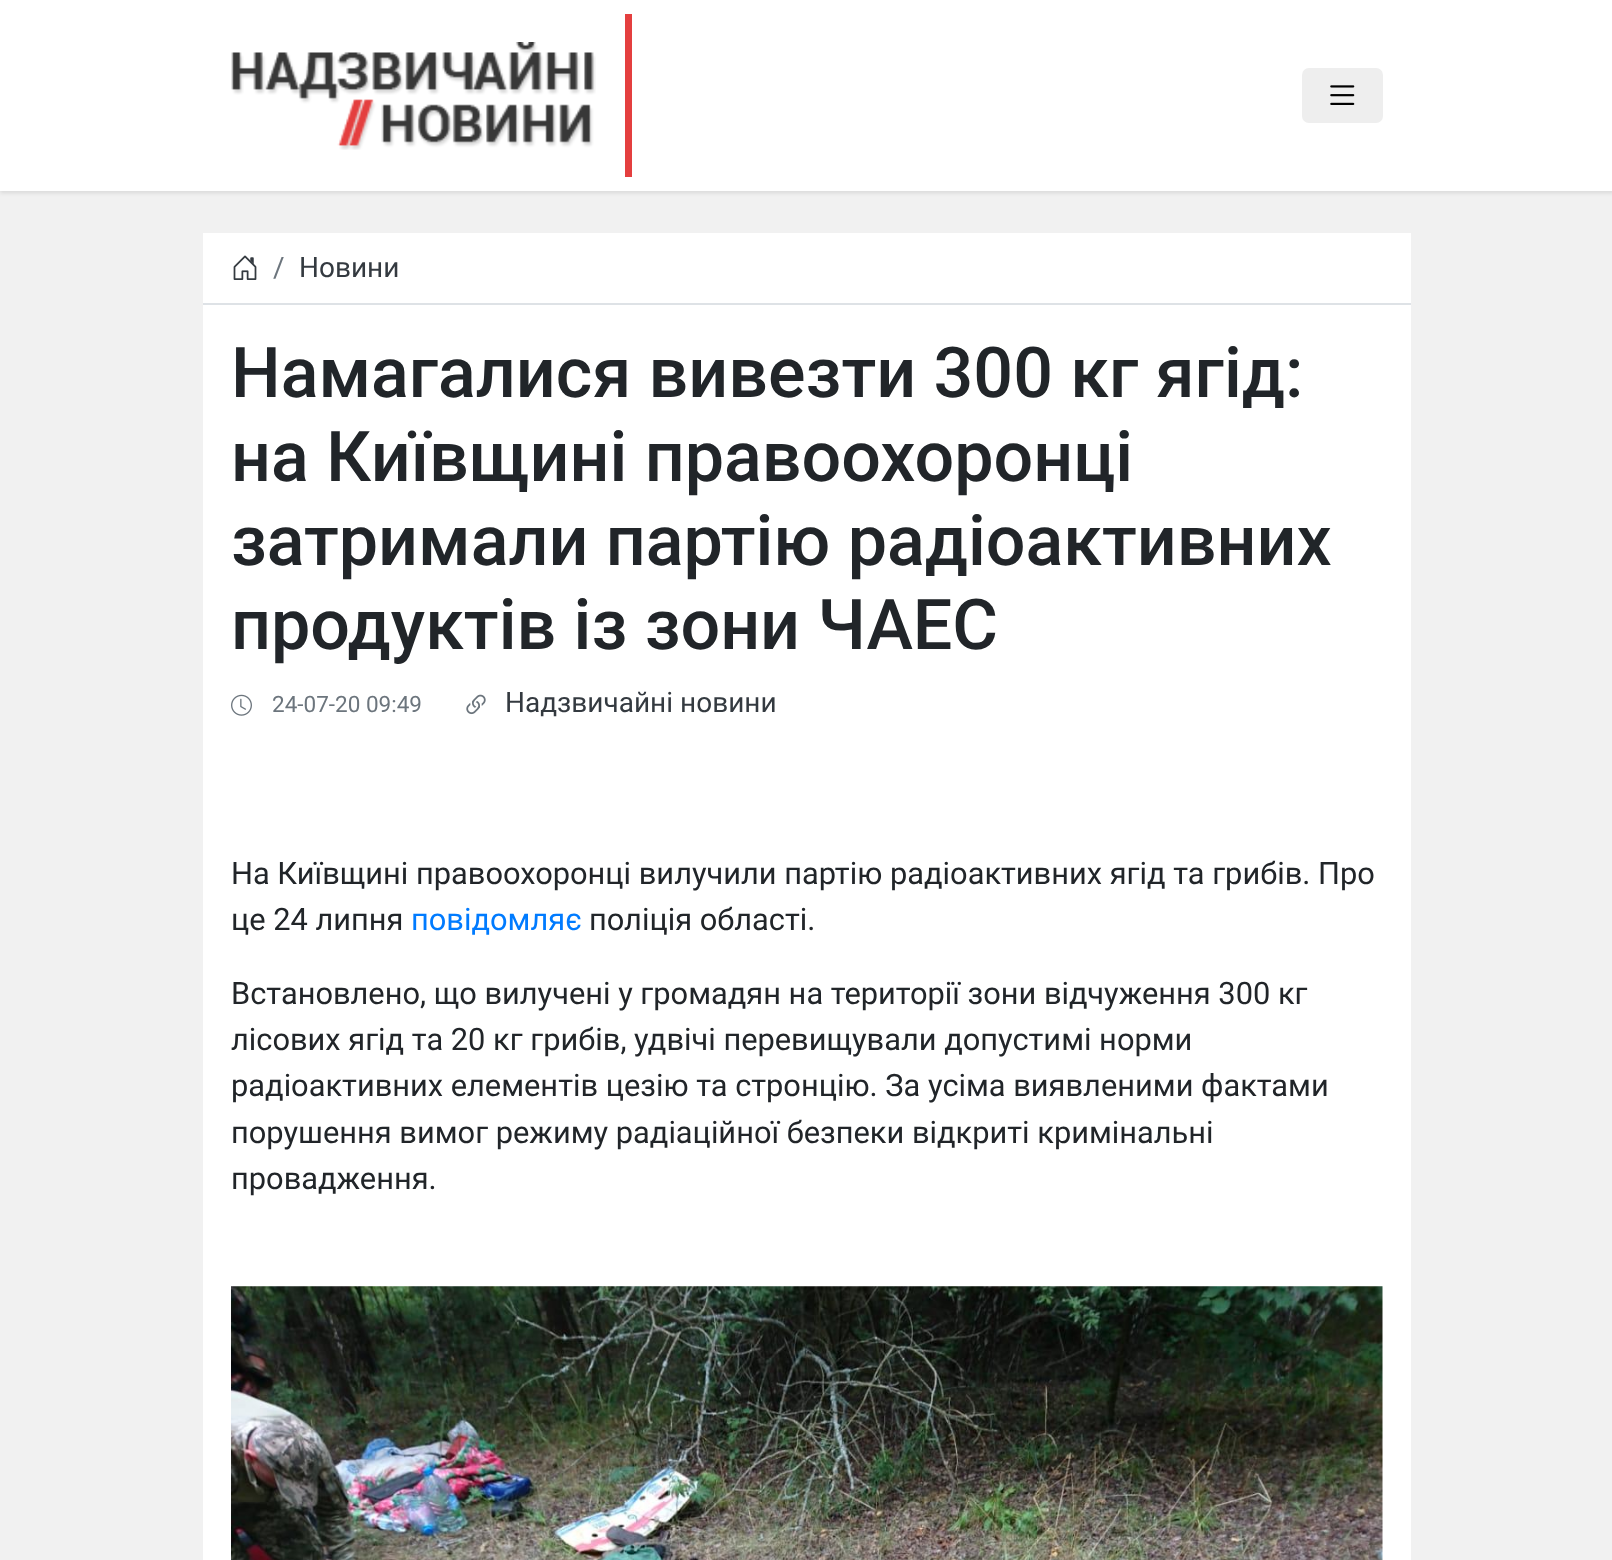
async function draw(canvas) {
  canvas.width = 1612
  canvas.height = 1560
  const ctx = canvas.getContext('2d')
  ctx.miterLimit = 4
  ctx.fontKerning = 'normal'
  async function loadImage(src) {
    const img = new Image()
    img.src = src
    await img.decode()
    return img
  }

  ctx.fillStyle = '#f1f1f1'
  ctx.fillRect(0, 0, 1612, 1560)
  ctx.fillStyle = '#0000001a'
  ctx.filter = 'blur(2px)'
  ctx.beginPath()
  ctx.rect(0, 2, 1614, 191)
  ctx.fill()
  ctx.filter = 'none'
  ctx.fillStyle = '#fff'
  ctx.fillRect(0, 0, 1612, 191)
  ctx.fillStyle = '#e43f3f'
  ctx.fillRect(625, 14, 7, 163)
  ctx.drawImage(await loadImage('image0.png'), 231, 42, 365, 108)
  ctx.fillStyle = '#eee'
  ctx.beginPath()
  ctx.roundRect(1302, 68, 81, 55, 7)
  ctx.fill()
  ctx.drawImage(await loadImage('image1.png'), 1330, 85, 25, 20)
  ctx.fillStyle = '#fff'
  ctx.fillRect(203, 233, 1208, 70)
  ctx.fillStyle = '#dee2e6'
  ctx.fillRect(203, 303, 1208, 2)
  ctx.drawImage(await loadImage('image2.png'), 233, 255, 24, 25)
  ctx.font = '28px Roboto'
  ctx.fillStyle = '#6c757d'
  ctx.fillText('/', 273, 277)
  ctx.fillStyle = '#343a40'
  ctx.fillText('Новини', 299, 277)
  ctx.fillStyle = '#fff'
  ctx.fillRect(203, 305, 1208, 1255)
  ctx.font = '500 70px Roboto'
  ctx.fillStyle = '#212529'
  ctx.fillText('Намагалися вивезти 300 кг ягід:', 231, 397)
  ctx.fillText('на Київщині правоохоронці', 231, 481)
  ctx.fillText('затримали партію радіоактивних', 231, 565)
  ctx.fillText('продуктів із зони ЧАЕС', 231, 649)
  ctx.drawImage(await loadImage('image3.png'), 231, 694, 21, 22)
  ctx.font = '22.5px Roboto'
  ctx.fillStyle = '#6c757d'
  ctx.fillText('24-07-20 09:49', 272, 712)
  ctx.drawImage(await loadImage('image4.png'), 466, 694, 20, 21)
  ctx.font = '28px Roboto'
  ctx.fillStyle = '#343a40'
  ctx.fillText('Надзвичайні новини', 505, 712)
  ctx.font = '30.8px Roboto'
  ctx.fillStyle = '#212529'
  ctx.fillText('На Київщині правоохоронці вилучили партію радіоактивних ягід та грибів. Про', 231, 884)
  ctx.fillText('це 24 липня', 231, 930)
  ctx.fillStyle = '#007bff'
  ctx.fillText('повідомляє', 411, 930)
  ctx.fillStyle = '#212529'
  ctx.fillText('поліція області.', 589, 930)
  ctx.fillText('Встановлено, що вилучені у громадян на території зони відчуження 300 кг', 231, 1004)
  ctx.fillText('лісових ягід та 20 кг грибів, удвічі перевищували допустимі норми', 231, 1050)
  ctx.fillText('радіоактивних елементів цезію та стронцію. За усіма виявленими фактами', 231, 1096)
  ctx.fillText('порушення вимог режиму радіаційної безпеки відкриті кримінальні', 231, 1143)
  ctx.fillText('провадження.', 231, 1189)
  ctx.drawImage(await loadImage('image5.png'), 231, 1286, 1152, 274)
}

draw(document.querySelector('canvas'))
